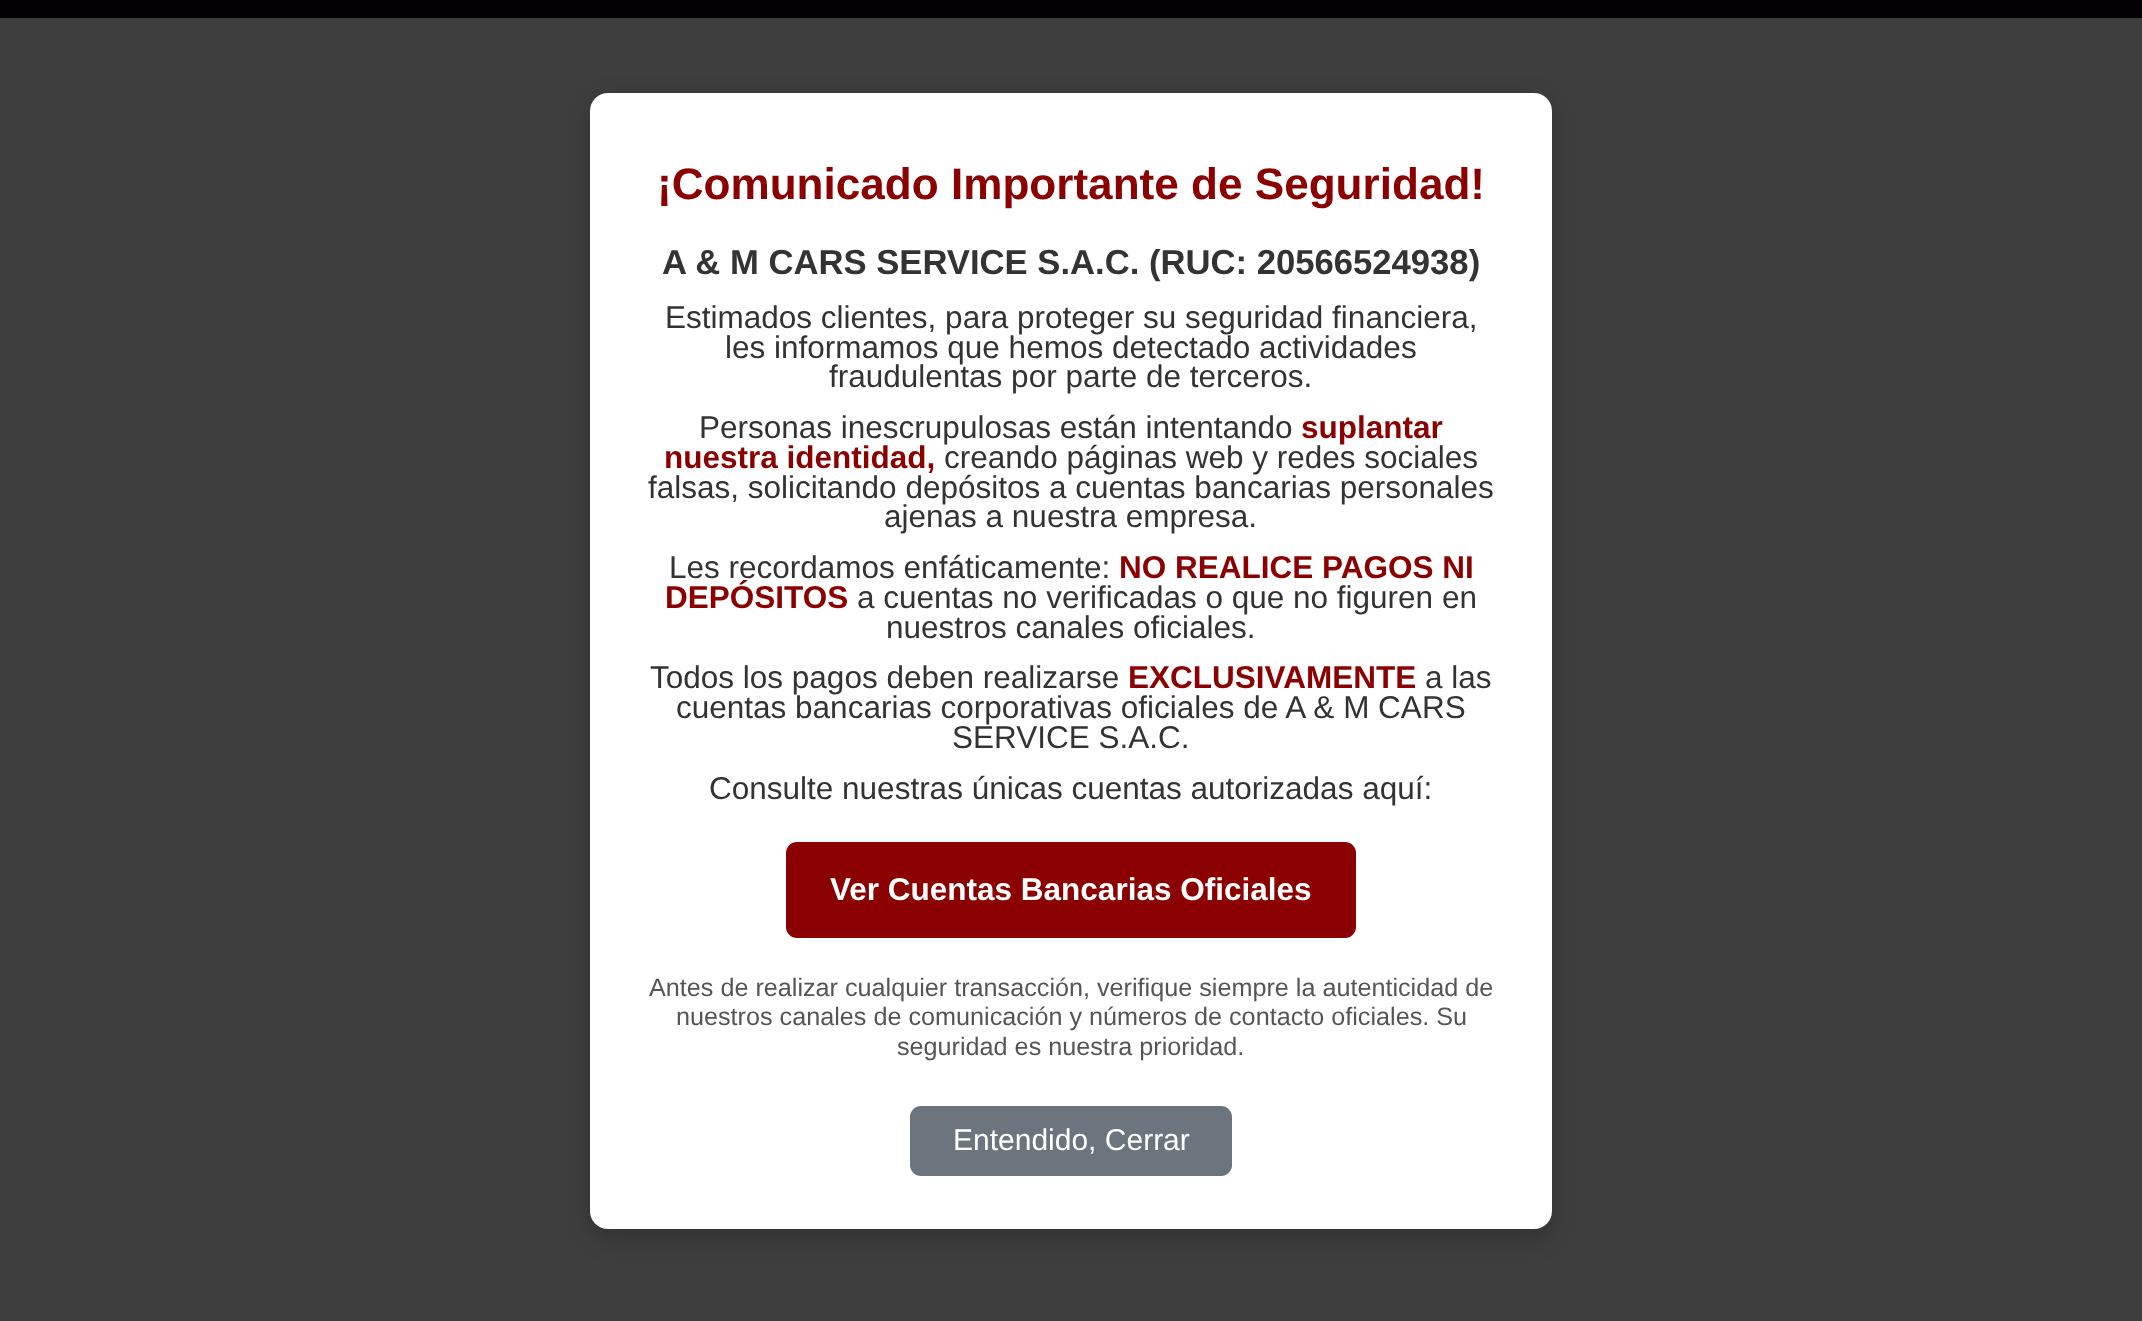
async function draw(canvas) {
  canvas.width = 2142
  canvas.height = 1321
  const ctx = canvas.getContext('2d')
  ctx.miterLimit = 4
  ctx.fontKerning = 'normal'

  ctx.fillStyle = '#3e3e3e'
  ctx.fillRect(0, 0, 2142, 1321)
  ctx.fillStyle = '#030103'
  ctx.fillRect(0, 0, 2142, 18)
  ctx.fillStyle = '#00000033'
  ctx.filter = 'blur(13px)'
  ctx.beginPath()
  ctx.roundRect(590, 102, 962, 1135, 18)
  ctx.fill()
  ctx.filter = 'none'
  ctx.fillStyle = '#fff'
  ctx.beginPath()
  ctx.roundRect(590, 93, 962, 1136, 18)
  ctx.fill()
  ctx.font = 'bold 44.1px Liberation Sans'
  ctx.fillStyle = '#8b0000'
  ctx.fillText('¡Comunicado Importante de Seguridad!', 657, 199)
  ctx.font = 'bold 34.65px Liberation Sans'
  ctx.fillStyle = '#333'
  ctx.fillText('A & M CARS SERVICE S.A.C. (RUC: 20566524938)', 662, 274)
  ctx.font = '31.5px Liberation Sans'
  ctx.fillText('Estimados clientes, para proteger su seguridad financiera,', 665, 328)
  ctx.fillText('les informamos que hemos detectado actividades', 725, 358)
  ctx.fillText('fraudulentas por parte de terceros.', 829, 387)
  ctx.fillText('Personas inescrupulosas están intentando', 699, 438)
  ctx.font = 'bold 31.5px Liberation Sans'
  ctx.fillStyle = '#8b0000'
  ctx.fillText('suplantar', 1301, 438)
  ctx.fillText('nuestra identidad,', 664, 468)
  ctx.font = '31.5px Liberation Sans'
  ctx.fillStyle = '#333'
  ctx.fillText('creando páginas web y redes sociales', 944, 468)
  ctx.fillText('falsas, solicitando depósitos a cuentas bancarias personales', 648, 498)
  ctx.fillText('ajenas a nuestra empresa.', 884, 527)
  ctx.fillText('Les recordamos enfáticamente:', 669, 578)
  ctx.font = 'bold 31.5px Liberation Sans'
  ctx.fillStyle = '#8b0000'
  ctx.fillText('NO REALICE PAGOS NI', 1119, 578)
  ctx.fillText('DEPÓSITOS', 665, 608)
  ctx.font = '31.5px Liberation Sans'
  ctx.fillStyle = '#333'
  ctx.fillText('a cuentas no verificadas o que no figuren en', 857, 608)
  ctx.fillText('nuestros canales oficiales.', 886, 638)
  ctx.fillText('Todos los pagos deben realizarse', 650, 688)
  ctx.font = 'bold 31.5px Liberation Sans'
  ctx.fillStyle = '#8b0000'
  ctx.fillText('EXCLUSIVAMENTE', 1128, 688)
  ctx.font = '31.5px Liberation Sans'
  ctx.fillStyle = '#333'
  ctx.fillText('a las', 1425, 688)
  ctx.fillText('cuentas bancarias corporativas oficiales de A & M CARS', 676, 718)
  ctx.fillText('SERVICE S.A.C.', 952, 748)
  ctx.fillText('Consulte nuestras únicas cuentas autorizadas aquí:', 709, 799)
  ctx.fillStyle = '#8b0000'
  ctx.beginPath()
  ctx.roundRect(786, 842, 570, 96, 11)
  ctx.fill()
  ctx.font = 'bold 31.5px Liberation Sans'
  ctx.fillStyle = '#fff'
  ctx.fillText('Ver Cuentas Bancarias Oficiales', 830, 900)
  ctx.font = '25.2px Liberation Sans'
  ctx.fillStyle = '#555'
  ctx.fillText('Antes de realizar cualquier transacción, verifique siempre la autenticidad de', 649, 996)
  ctx.fillText('nuestros canales de comunicación y números de contacto oficiales. Su', 676, 1025)
  ctx.fillText('seguridad es nuestra prioridad.', 897, 1055)
  ctx.fillStyle = '#6c757d'
  ctx.beginPath()
  ctx.roundRect(910, 1106, 322, 70, 11)
  ctx.fill()
  ctx.font = '30px Liberation Sans'
  ctx.fillStyle = '#fff'
  ctx.fillText('Entendido, Cerrar', 953, 1150)
}

draw(document.querySelector('canvas'))
